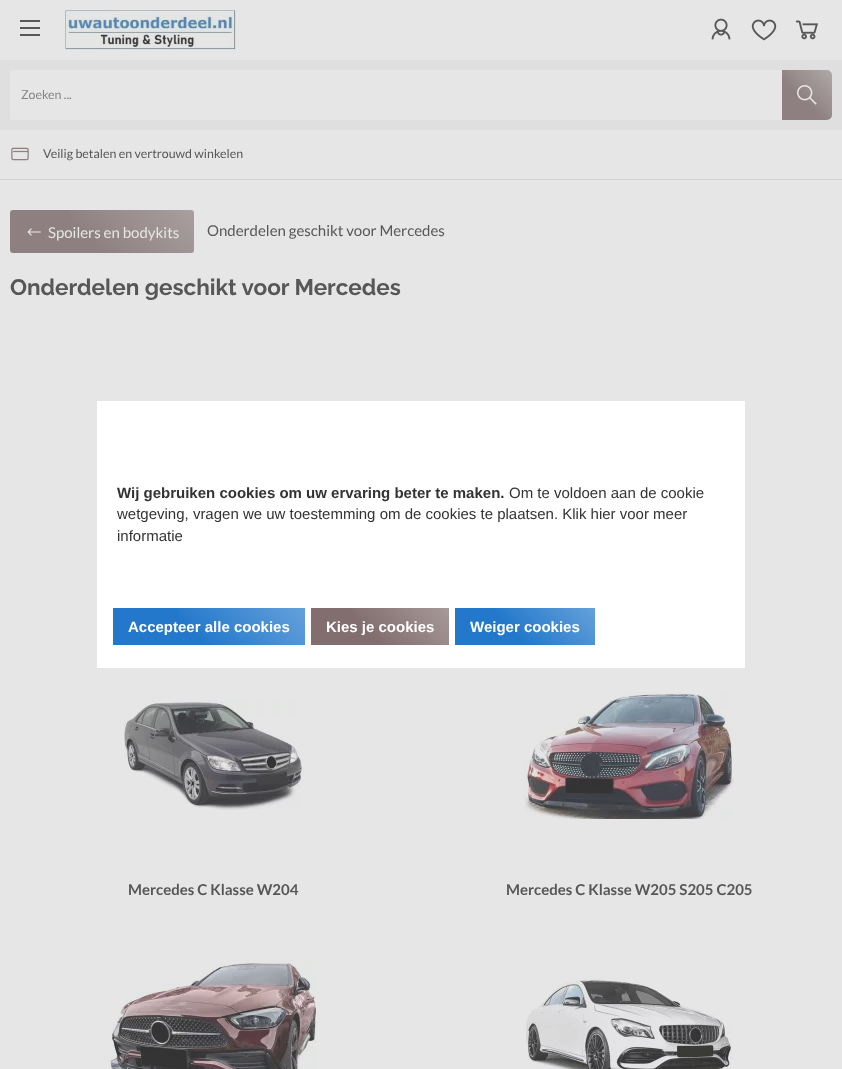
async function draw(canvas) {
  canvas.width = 842
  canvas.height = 1069
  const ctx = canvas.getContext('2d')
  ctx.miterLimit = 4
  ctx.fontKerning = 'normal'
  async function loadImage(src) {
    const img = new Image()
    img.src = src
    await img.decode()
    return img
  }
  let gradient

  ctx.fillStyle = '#e6e6e6'
  ctx.fillRect(0, 0, 842, 1069)
  ctx.fillStyle = '#575757'
  ctx.fillRect(20, 20, 20, 2)
  ctx.fillRect(20, 27, 20, 2)
  ctx.fillRect(20, 34, 20, 2)
  ctx.drawImage(await loadImage('image0.png'), 65, 10, 171, 40)
  ctx.drawImage(await loadImage('image1.png'), 711, 18, 20, 22)
  ctx.drawImage(await loadImage('image2.png'), 751, 19, 26, 22)
  ctx.drawImage(await loadImage('image3.png'), 795, 20, 23, 20)
  ctx.fillStyle = '#dfdfdf'
  ctx.fillRect(0, 60, 842, 70)
  ctx.fillStyle = '#e6e6e6'
  ctx.beginPath()
  ctx.roundRect(10, 70, 822, 50, 3)
  ctx.fill()
  ctx.font = '12.4px Lato'
  ctx.fillStyle = '#858585'
  ctx.fillText('Zoeken ...', 21, 99)
  ctx.fillStyle = '#8e8080'
  ctx.beginPath()
  ctx.roundRect(782, 70, 50, 50, [0, 5, 5, 0])
  ctx.fill()
  gradient = ctx.createLinearGradient(832, 70, 782, 120)
  gradient.addColorStop(0, '#e6e6e666')
  gradient.addColorStop(0.6, '#e6e6e600')
  ctx.fillStyle = gradient
  ctx.fillRect(782, 70, 50, 50)
  ctx.drawImage(await loadImage('image4.png'), 797, 85, 20, 20)
  ctx.fillStyle = '#d2d2d2'
  ctx.fillRect(0, 179, 842, 1)
  ctx.drawImage(await loadImage('image5.png'), 11, 147, 18, 14)
  ctx.fillStyle = '#575757'
  ctx.fillText('Veilig betalen en vertrouwd winkelen', 43, 158)
  ctx.fillStyle = '#8e8080'
  ctx.beginPath()
  ctx.roundRect(10, 210, 184, 43, 3)
  ctx.fill()
  gradient = ctx.createLinearGradient(159, 175, 45, 288)
  gradient.addColorStop(0, '#e6e6e64d')
  gradient.addColorStop(0.6, '#e6e6e600')
  ctx.fillStyle = gradient
  ctx.fillRect(69, 210, 125, 43)
  ctx.drawImage(await loadImage('image6.png'), 27, 228, 14, 8)
  ctx.font = '15px Lato'
  ctx.fillStyle = '#e6e6e6'
  ctx.fillText('Spoilers en bodykits', 48, 238)
  ctx.fillStyle = '#575757'
  ctx.fillText('Onderdelen geschikt voor Mercedes', 207, 236)
  ctx.font = 'bold 22.5px Raleway'
  ctx.fillText('Onderdelen geschikt voor Mercedes', 10, 295)
  ctx.drawImage(await loadImage('image7.png'), 124, 700, 180, 110)
  ctx.font = 'bold 15px Lato'
  ctx.fillText('Mercedes C Klasse W204', 128, 895)
  ctx.drawImage(await loadImage('image8.png'), 524, 692, 210, 127)
  ctx.fillText('Mercedes C Klasse W205 S205 C205', 506, 895)
  ctx.drawImage(await loadImage('image9.png'), 109, 960, 207, 109)
  ctx.drawImage(await loadImage('image10.png'), 526, 978, 206, 91)
  ctx.fillStyle = '#fff'
  ctx.fillRect(97, 401, 648, 267)
  ctx.font = 'bold 15px Liberation Sans'
  ctx.fillStyle = '#333'
  ctx.fillText('Wij gebruiken cookies om uw ervaring beter te maken.', 117, 498)
  ctx.font = '15px Liberation Sans'
  ctx.fillText('Om te voldoen aan de cookie', 509, 498)
  ctx.fillText('wetgeving, vragen we uw toestemming om de cookies te plaatsen. Klik hier voor meer', 117, 519)
  ctx.fillText('informatie', 117, 541)
  ctx.fillStyle = '#2378cb'
  ctx.fillRect(113, 608, 192, 37)
  gradient = ctx.createLinearGradient(266, 569, 152, 684)
  gradient.addColorStop(0, '#ffffff4d')
  gradient.addColorStop(0.6, '#ffffff00')
  ctx.fillStyle = gradient
  ctx.fillRect(178, 608, 127, 37)
  ctx.font = 'bold 15px Liberation Sans'
  ctx.fillStyle = '#fff'
  ctx.fillText('Accepteer alle cookies', 128, 632)
  ctx.fillStyle = '#826e6e'
  ctx.fillRect(311, 608, 138, 37)
  gradient = ctx.createLinearGradient(424, 583, 336, 670)
  gradient.addColorStop(0, '#ffffff4d')
  gradient.addColorStop(0.6, '#ffffff00')
  ctx.fillStyle = gradient
  ctx.fillRect(352, 608, 97, 37)
  ctx.fillStyle = '#fff'
  ctx.fillText('Kies je cookies', 326, 632)
  ctx.fillStyle = '#2378cb'
  ctx.fillRect(455, 608, 140, 37)
  gradient = ctx.createLinearGradient(569, 582, 481, 671)
  gradient.addColorStop(0, '#ffffff4d')
  gradient.addColorStop(0.6, '#ffffff00')
  ctx.fillStyle = gradient
  ctx.fillRect(497, 608, 98, 37)
  ctx.fillStyle = '#fff'
  ctx.fillText('Weiger cookies', 470, 632)
}

draw(document.querySelector('canvas'))
